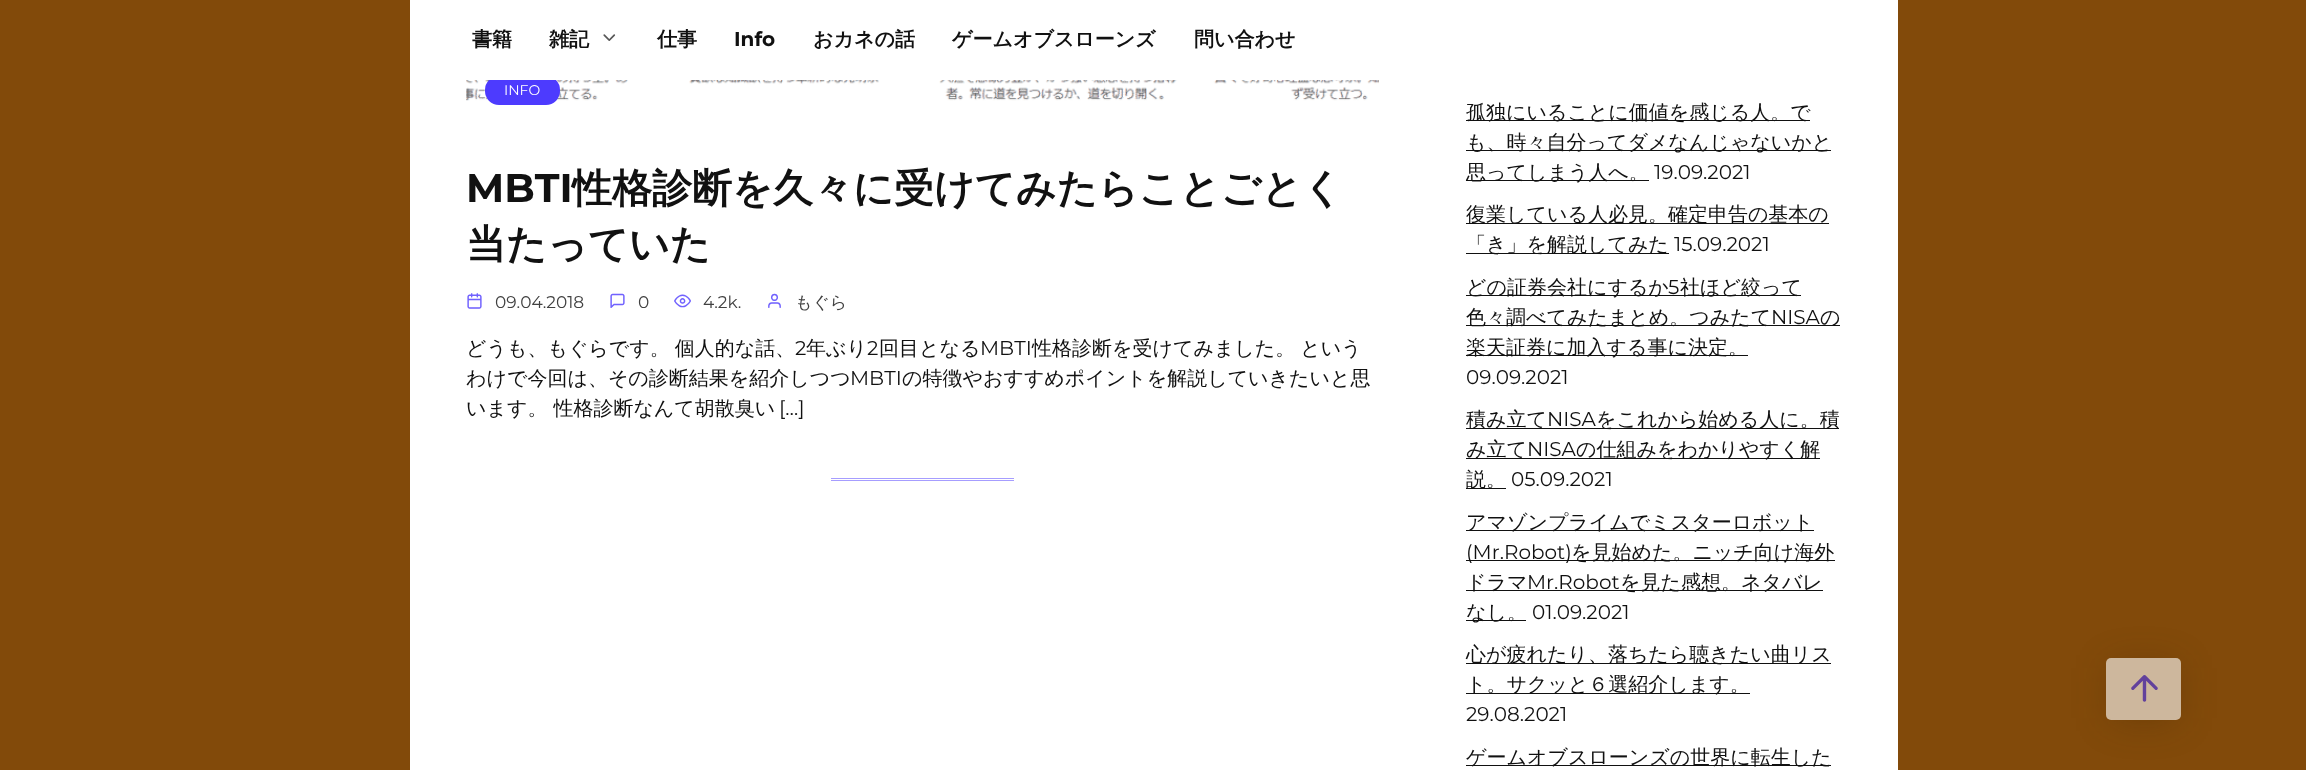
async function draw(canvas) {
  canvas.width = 2306
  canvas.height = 770
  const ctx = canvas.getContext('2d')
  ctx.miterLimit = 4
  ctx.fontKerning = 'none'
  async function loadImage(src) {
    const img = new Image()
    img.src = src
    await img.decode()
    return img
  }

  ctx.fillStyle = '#824a0a'
  ctx.fillRect(0, 0, 2306, 770)
  ctx.fillStyle = '#fff'
  ctx.fillRect(410, 80, 1488, 690)
  ctx.drawImage(await loadImage('image0.png'), 466, 80, 913, 21)
  ctx.fillStyle = '#4d3bfe'
  ctx.beginPath()
  ctx.roundRect(485, 76, 75, 29, 14)
  ctx.fill()
  ctx.fillStyle = '#fff'
  ctx.fillRect(410, 0, 1488, 80)
  ctx.font = 'bold 20px WenQuanYi Zen Hei'
  ctx.fillStyle = '#111'
  ctx.fillText('書籍', 472, 46)
  ctx.fillText('雑記', 549, 46)
  ctx.font = '20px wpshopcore'
  ctx.fillStyle = '#585858'
  ctx.fillText('﹀', 599, 46)
  ctx.font = 'bold 20px WenQuanYi Zen Hei'
  ctx.fillStyle = '#111'
  ctx.fillText('仕事', 657, 46)
  ctx.font = 'bold 20px Montserrat'
  ctx.fillText('Info', 734, 46)
  ctx.font = 'bold 20px WenQuanYi Zen Hei'
  ctx.fillText('おカネの話', 813, 46)
  ctx.fillText('ゲームオブスローンズ', 952, 46)
  ctx.fillText('問い合わせ', 1194, 46)
  ctx.font = '14px Montserrat'
  ctx.fillStyle = '#fff'
  ctx.fillText('INFO', 504, 95)
  ctx.font = 'bold 40px Montserrat'
  ctx.fillStyle = '#111'
  ctx.fillText('MBTI', 466, 202)
  ctx.font = 'bold 40px WenQuanYi Zen Hei'
  ctx.fillText('性格診断を久々に受けてみたらことごとく', 572, 202)
  ctx.fillText('当たっていた', 466, 258)
  ctx.font = '17px wpshopcore'
  ctx.fillStyle = '#7162fe'
  ctx.fillText('📅', 466, 308)
  ctx.font = '17px Montserrat'
  ctx.fillStyle = '#414141'
  ctx.fillText('09.04.2018', 495, 308)
  ctx.font = '17px wpshopcore'
  ctx.fillStyle = '#7162fe'
  ctx.fillText('💬', 609, 308)
  ctx.font = '17px Montserrat'
  ctx.fillStyle = '#414141'
  ctx.fillText('0', 638, 308)
  ctx.font = '17px wpshopcore'
  ctx.fillStyle = '#7162fe'
  ctx.fillText('👀', 674, 308)
  ctx.font = '17px Montserrat'
  ctx.fillStyle = '#414141'
  ctx.fillText('4.2k.', 703, 308)
  ctx.font = '17px wpshopcore'
  ctx.fillStyle = '#7162fe'
  ctx.fillText('👤', 766, 308)
  ctx.font = '500 17px WenQuanYi Zen Hei'
  ctx.fillStyle = '#414141'
  ctx.fillText('もぐら', 795, 308)
  ctx.wordSpacing = '-1px'
  ctx.font = '500 20px WenQuanYi Zen Hei'
  ctx.fillStyle = '#111'
  ctx.fillText('どうも、もぐらです。 個人的な話、', 466, 355)
  ctx.wordSpacing = '0px'
  ctx.font = '20px Montserrat'
  ctx.fillText('2', 795, 355)
  ctx.font = '500 20px WenQuanYi Zen Hei'
  ctx.fillText('年ぶり', 806, 355)
  ctx.font = '20px Montserrat'
  ctx.fillText('2', 867, 355)
  ctx.font = '500 20px WenQuanYi Zen Hei'
  ctx.fillText('回目となる', 879, 355)
  ctx.font = '20px Montserrat'
  ctx.fillText('MBTI', 980, 355)
  ctx.wordSpacing = '-1px'
  ctx.font = '500 20px WenQuanYi Zen Hei'
  ctx.fillText('性格診断を受けてみました。 という', 1032, 355)
  ctx.wordSpacing = '0px'
  ctx.fillText('わけで今回は、その診断結果を紹介しつつ', 466, 385)
  ctx.font = '20px Montserrat'
  ctx.fillText('MBTI', 850, 385)
  ctx.font = '500 20px WenQuanYi Zen Hei'
  ctx.fillText('の特徴やおすすめポイントを解説していきたいと思', 902, 385)
  ctx.fillText('います。 性格診断なんて胡散臭い', 466, 415)
  ctx.font = '20px Montserrat'
  ctx.fillText('[…]', 779, 415)
  ctx.fillStyle = '#a69dff'
  ctx.fillRect(831, 478, 183, 1)
  ctx.fillRect(831, 480, 183, 1)
  ctx.fillStyle = '#111'
  ctx.fillRect(1466, 120, 344, 1)
  ctx.font = '500 20px WenQuanYi Zen Hei'
  ctx.fillText('孤独にいることに価値を感じる人。で', 1466, 119)
  ctx.fillRect(1466, 150, 365, 1)
  ctx.fillText('も、時々自分ってダメなんじゃないかと', 1466, 149)
  ctx.fillRect(1466, 180, 183, 1)
  ctx.fillText('思ってしまう人へ。', 1466, 179)
  ctx.font = '20px Montserrat'
  ctx.fillText('19.09.2021', 1654, 179)
  ctx.fillRect(1466, 223, 363, 1)
  ctx.font = '500 20px WenQuanYi Zen Hei'
  ctx.fillText('復業している人必見。確定申告の基本の', 1466, 221)
  ctx.fillRect(1466, 253, 203, 1)
  ctx.fillText('「き」を解説してみた', 1466, 251)
  ctx.font = '20px Montserrat'
  ctx.fillText('15.09.2021', 1674, 251)
  ctx.fillRect(1466, 295, 335, 1)
  ctx.font = '500 20px WenQuanYi Zen Hei'
  ctx.fillText('どの証券会社にするか', 1466, 294)
  ctx.font = '20px Montserrat'
  ctx.fillText('5', 1668, 294)
  ctx.font = '500 20px WenQuanYi Zen Hei'
  ctx.fillText('社ほど絞って', 1680, 294)
  ctx.fillRect(1466, 325, 374, 1)
  ctx.fillText('色々調べてみたまとめ。つみたて', 1466, 324)
  ctx.font = '20px Montserrat'
  ctx.fillText('NISA', 1771, 324)
  ctx.font = '500 20px WenQuanYi Zen Hei'
  ctx.fillText('の', 1820, 324)
  ctx.fillRect(1466, 355, 282, 1)
  ctx.fillText('楽天証券に加入する事に決定。', 1466, 354)
  ctx.font = '20px Montserrat'
  ctx.fillText('09.09.2021', 1466, 384)
  ctx.fillRect(1466, 428, 373, 1)
  ctx.font = '500 20px WenQuanYi Zen Hei'
  ctx.fillText('積み立て', 1466, 426)
  ctx.font = '20px Montserrat'
  ctx.fillText('NISA', 1547, 426)
  ctx.font = '500 20px WenQuanYi Zen Hei'
  ctx.fillText('をこれから始める人に。積', 1596, 426)
  ctx.fillRect(1466, 458, 354, 1)
  ctx.fillText('み立て', 1466, 456)
  ctx.font = '20px Montserrat'
  ctx.fillText('NISA', 1527, 456)
  ctx.font = '500 20px WenQuanYi Zen Hei'
  ctx.fillText('の仕組みをわかりやすく解', 1576, 456)
  ctx.fillRect(1466, 488, 40, 1)
  ctx.fillText('説。', 1466, 486)
  ctx.font = '20px Montserrat'
  ctx.fillText('05.09.2021', 1511, 486)
  ctx.fillRect(1466, 530, 348, 1)
  ctx.font = '500 20px WenQuanYi Zen Hei'
  ctx.fillText('アマゾンプライムでミスターロボット', 1466, 529)
  ctx.fillRect(1466, 560, 369, 1)
  ctx.font = '20px Montserrat'
  ctx.fillText('(Mr.Robot)', 1466, 559)
  ctx.font = '500 20px WenQuanYi Zen Hei'
  ctx.fillText('を見始めた。ニッチ向け海外', 1571, 559)
  ctx.fillRect(1466, 590, 357, 1)
  ctx.fillText('ドラマ', 1466, 589)
  ctx.font = '20px Montserrat'
  ctx.fillText('Mr.Robot', 1527, 589)
  ctx.font = '500 20px WenQuanYi Zen Hei'
  ctx.fillText('を見た感想。ネタバレ', 1620, 589)
  ctx.fillRect(1466, 620, 60, 1)
  ctx.fillText('なし。', 1466, 619)
  ctx.font = '20px Montserrat'
  ctx.fillText('01.09.2021', 1532, 619)
  ctx.fillRect(1466, 663, 365, 1)
  ctx.font = '500 20px WenQuanYi Zen Hei'
  ctx.fillText('心が疲れたり、落ちたら聴きたい曲リス', 1466, 661)
  ctx.fillRect(1466, 693, 284, 1)
  ctx.fillText('ト。サクッと６選紹介します。', 1466, 691)
  ctx.font = '20px Montserrat'
  ctx.fillText('29.08.2021', 1466, 721)
  ctx.fillRect(1466, 765, 365, 1)
  ctx.font = '500 20px WenQuanYi Zen Hei'
  ctx.fillText('ゲームオブスローンズの世界に転生した', 1466, 764)
  ctx.fillStyle = '#341e044d'
  ctx.filter = 'blur(19px)'
  ctx.beginPath()
  ctx.rect(2113, 668, 62, 50)
  ctx.fill()
  ctx.filter = 'none'
  ctx.fillStyle = '#cdb79d'
  ctx.beginPath()
  ctx.roundRect(2106, 658, 75, 62, 5)
  ctx.fill()
  ctx.font = '40px wpshopcore'
  ctx.fillStyle = '#62419c'
  ctx.fillText('↑', 2124, 705)
}

draw(document.querySelector('canvas'))
